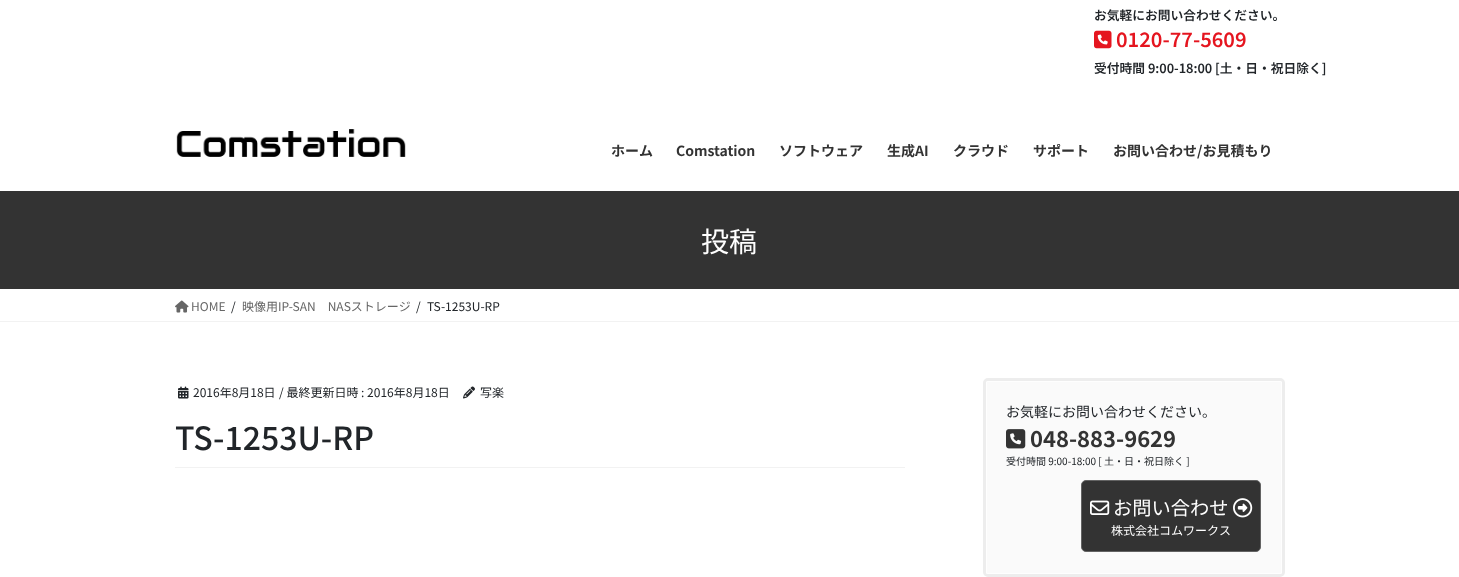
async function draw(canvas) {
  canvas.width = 1459
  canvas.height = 577
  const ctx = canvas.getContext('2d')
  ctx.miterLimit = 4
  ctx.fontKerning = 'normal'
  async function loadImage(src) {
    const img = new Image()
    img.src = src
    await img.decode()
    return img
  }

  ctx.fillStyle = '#fff'
  ctx.fillRect(0, 0, 1459, 577)
  ctx.font = '600 12.75px Noto Sans JP'
  ctx.fillStyle = '#212529'
  ctx.fillText('お気軽にお問い合わせください。', 1094, 20)
  ctx.drawImage(await loadImage('image0.png'), 1094, 30, 18, 19)
  ctx.font = '600 20px Noto Sans JP'
  ctx.fillStyle = '#e5151f'
  ctx.fillText('0120-77-5609', 1116, 47)
  ctx.font = '600 12.75px Noto Sans JP'
  ctx.fillStyle = '#212529'
  ctx.fillText('受付時間 9:00-18:00 [土・日・祝日除く]', 1094, 73)
  ctx.drawImage(await loadImage('image1.png'), 176, 129, 230, 28)
  ctx.font = 'bold 14px Noto Sans JP'
  ctx.fillStyle = '#333'
  ctx.fillText('ホーム', 611, 156)
  ctx.fillText('Comstation', 676, 156)
  ctx.fillText('ソフトウェア', 779, 156)
  ctx.fillText('生成AI', 887, 156)
  ctx.fillText('クラウド', 953, 156)
  ctx.fillText('サポート', 1033, 156)
  ctx.fillText('お問い合わせ/お見積もり', 1113, 156)
  ctx.fillRect(0, 191, 1459, 98)
  ctx.font = '28px Noto Sans JP'
  ctx.fillStyle = '#fff'
  ctx.fillText('投稿', 701, 252)
  ctx.fillStyle = '#f2f2f2'
  ctx.fillRect(0, 321, 1459, 1)
  ctx.drawImage(await loadImage('image2.png'), 175, 300, 14, 13)
  ctx.font = '12px Noto Sans JP'
  ctx.fillStyle = '#666'
  ctx.fillText('HOME', 191, 311)
  ctx.fillStyle = '#212529'
  ctx.fillText('/', 231, 311)
  ctx.fillStyle = '#666'
  ctx.fillText('映像用IP-SAN　NASストレージ', 242, 311)
  ctx.fillStyle = '#212529'
  ctx.fillText('/', 416, 311)
  ctx.fillText('TS-1253U-RP', 427, 311)
  ctx.fillStyle = '#f2f2f2'
  ctx.fillRect(175, 467, 730, 1)
  ctx.drawImage(await loadImage('image3.png'), 178, 386, 11, 13)
  ctx.fillStyle = '#212529'
  ctx.fillText('2016年8月18日', 193, 397)
  ctx.fillText('/ 最終更新日時 : 2016年8月18日', 279, 397)
  ctx.drawImage(await loadImage('image4.png'), 463, 386, 12, 13)
  ctx.fillText('写楽', 480, 397)
  ctx.font = '500 32px Noto Sans JP'
  ctx.fillText('TS-1253U-RP', 175, 450)
  ctx.beginPath()
  ctx.roundRect(984.5, 379.5, 299, 196, 3.5)
  ctx.strokeStyle = '#ededed'
  ctx.lineWidth = 3
  ctx.stroke()
  ctx.fillStyle = '#fafafa'
  ctx.beginPath()
  ctx.roundRect(986, 381, 296, 193, 2)
  ctx.fill()
  ctx.fillStyle = '#fefefe'
  ctx.beginPath()
  ctx.moveTo(988, 381)
  ctx.bezierCurveTo(987, 381, 986, 382, 986, 383)
  ctx.lineTo(986, 572)
  ctx.bezierCurveTo(986, 573, 987, 574, 988, 574)
  ctx.lineTo(1280, 574)
  ctx.bezierCurveTo(1281, 574, 1282, 573, 1282, 572)
  ctx.lineTo(1282, 383)
  ctx.bezierCurveTo(1282, 382, 1281, 381, 1280, 381)
  ctx.closePath()
  ctx.moveTo(987, 382)
  ctx.lineTo(987, 573)
  ctx.lineTo(1281, 573)
  ctx.lineTo(1281, 382)
  ctx.closePath()
  ctx.fill('evenodd')
  ctx.font = '14px Noto Sans JP'
  ctx.fillStyle = '#212529'
  ctx.fillText('お気軽にお問い合わせください。', 1006, 417)
  ctx.drawImage(await loadImage('image5.png'), 1006, 429, 20, 20)
  ctx.font = 'bold 22px Noto Sans JP'
  ctx.fillStyle = '#333'
  ctx.fillText('048-883-9629', 1030, 447)
  ctx.font = '10px Noto Sans JP'
  ctx.fillStyle = '#212529'
  ctx.fillText('受付時間 9:00-18:00 [ 土・日・祝日除く ]', 1006, 465)
  ctx.fillStyle = '#333'
  ctx.beginPath()
  ctx.roundRect(1081.5, 480.5, 179, 71, 4.5)
  ctx.fill()
  ctx.strokeStyle = '#636363'
  ctx.lineWidth = 1
  ctx.stroke()
  ctx.drawImage(await loadImage('image6.png'), 1090, 500, 20, 15)
  ctx.font = '19.25px Noto Sans JP'
  ctx.fillStyle = '#fff'
  ctx.fillText('お問い合わせ', 1113, 515)
  ctx.drawImage(await loadImage('image7.png'), 1233, 498, 20, 20)
  ctx.font = '12px Noto Sans JP'
  ctx.fillText('株式会社コムワークス', 1111, 535)
}

draw(document.querySelector('canvas'))
